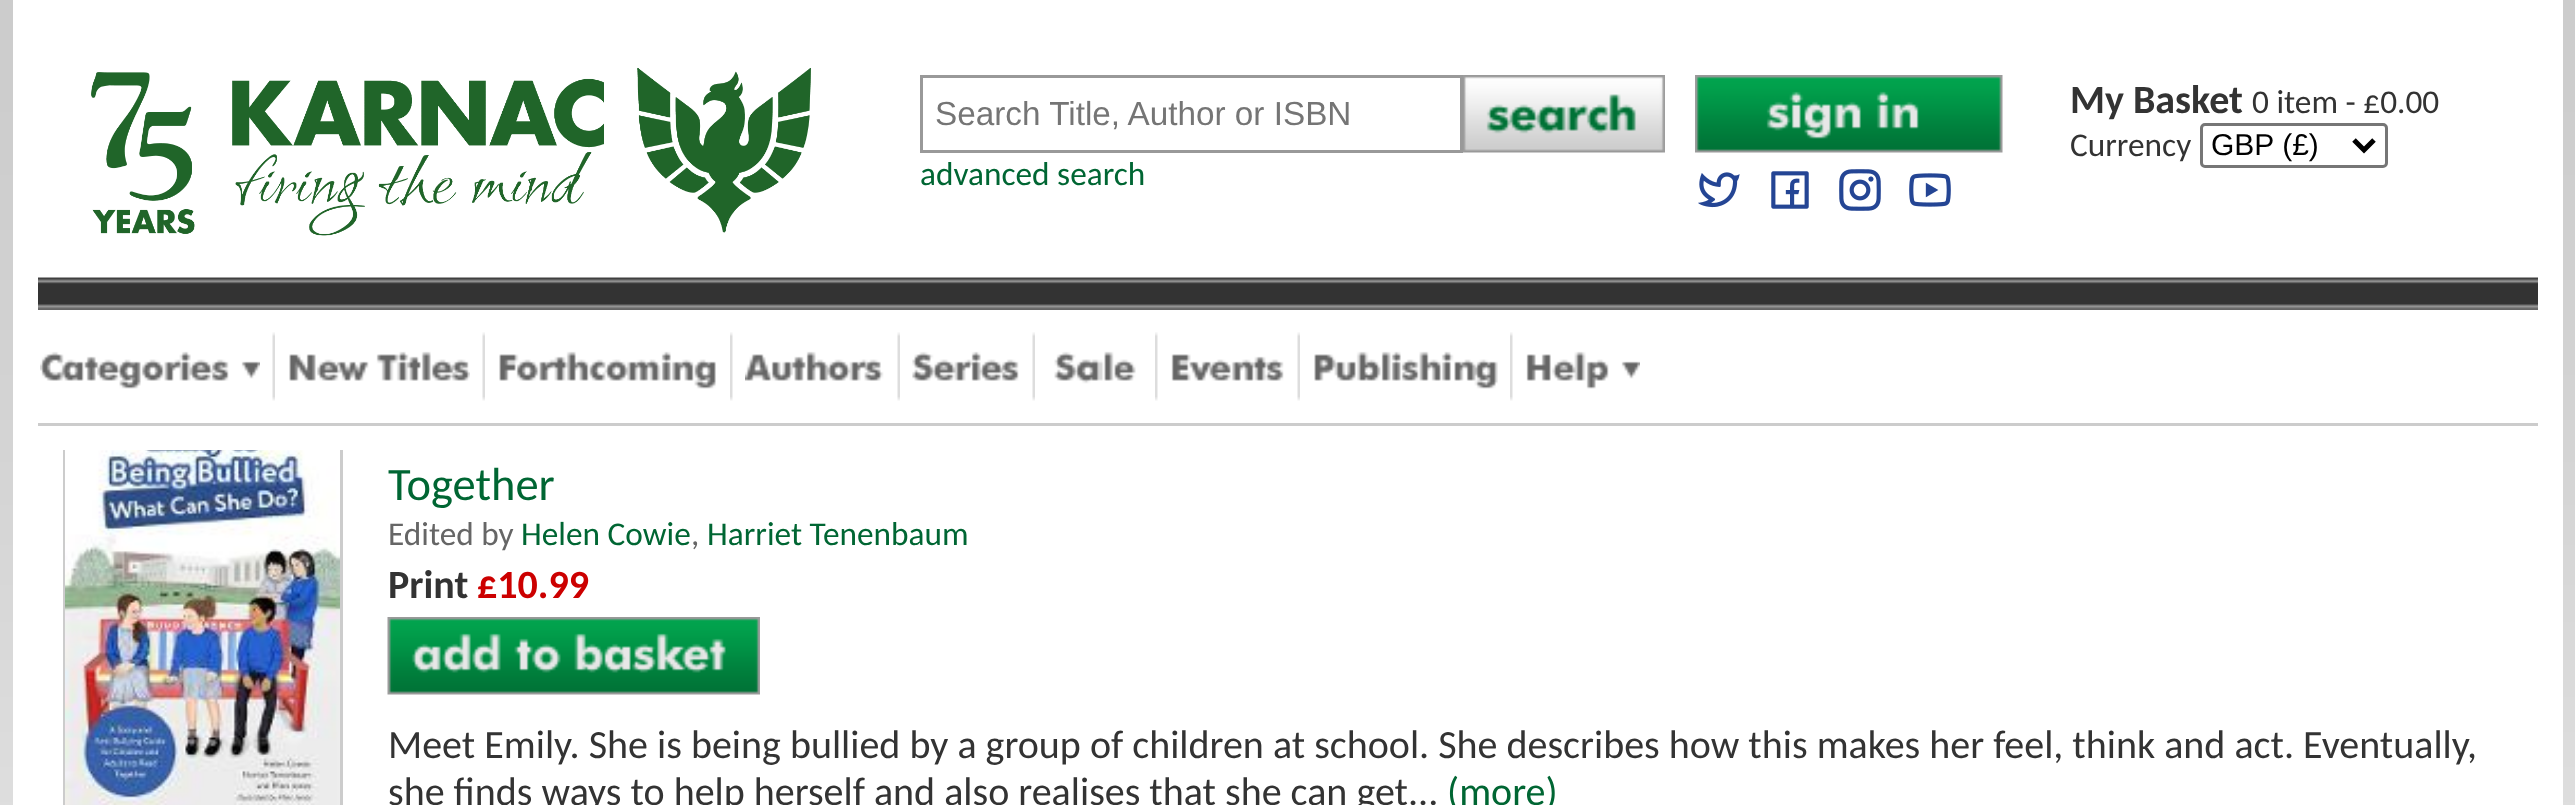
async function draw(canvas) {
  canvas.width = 2575
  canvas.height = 805
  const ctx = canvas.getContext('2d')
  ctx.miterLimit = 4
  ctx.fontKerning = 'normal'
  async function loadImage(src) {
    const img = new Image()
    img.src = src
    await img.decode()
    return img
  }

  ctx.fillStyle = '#fff'
  ctx.fillRect(0, 0, 2575, 805)
  ctx.drawImage(await loadImage('image0.png'), 0, 0, 2575, 805)
  ctx.fillRect(13, 0, 2550, 805)
  ctx.strokeStyle = '#ccc'
  ctx.lineWidth = 3
  ctx.strokeRect(64.5, 399.5, 277, 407)
  ctx.fillRect(63, 398, 280, 52)
  ctx.drawImage(await loadImage('image1.png'), 91, 67, 720, 169)
  ctx.strokeStyle = '#999'
  ctx.strokeRect(921.5, 76.5, 540, 75)
  ctx.font = '33.3px Liberation Sans'
  ctx.fillStyle = '#757575'
  ctx.fillText('Search Title, Author or ISBN', 935, 125)
  ctx.drawImage(await loadImage('image2.png'), 1463, 75, 202, 78)
  ctx.font = '33.3px Carlito'
  ctx.fillStyle = '#063'
  ctx.fillText('advanced search', 920, 185)
  ctx.drawImage(await loadImage('image3.png'), 1695, 75, 308, 78)
  ctx.drawImage(await loadImage('image4.png'), 1698, 172, 42, 36)
  ctx.drawImage(await loadImage('image5.png'), 1771, 171, 38, 38)
  ctx.drawImage(await loadImage('image6.png'), 1839, 169, 42, 42)
  ctx.drawImage(await loadImage('image7.png'), 1909, 173, 42, 34)
  ctx.font = 'bold 40px Carlito'
  ctx.fillStyle = '#333'
  ctx.fillText('My Basket', 2070, 113)
  ctx.font = '33.3px Carlito'
  ctx.fillText('0 item - £0.00', 2252, 113)
  ctx.fillText('Currency', 2070, 156)
  ctx.beginPath()
  ctx.roundRect(2201.5, 124.5, 185, 42, 3.5)
  ctx.strokeStyle = '#767676'
  ctx.stroke()
  ctx.beginPath()
  ctx.moveTo(2354, 140)
  ctx.lineTo(2364, 150)
  ctx.lineTo(2374, 140)
  ctx.strokeStyle = '#000'
  ctx.lineWidth = 5
  ctx.stroke()
  ctx.font = '30px Liberation Sans'
  ctx.fillStyle = '#000'
  ctx.fillText('GBP (£)', 2211, 155)
  ctx.drawImage(await loadImage('image8.png'), 38, 277, 2500, 33)
  ctx.fillStyle = '#ccc'
  ctx.fillRect(38, 423, 2500, 3)
  ctx.drawImage(await loadImage('image9.png'), 40, 351, 220, 38)
  ctx.drawImage(await loadImage('image10.png'), 272, 332, 3, 69)
  ctx.drawImage(await loadImage('image11.png'), 289, 351, 181, 30)
  ctx.drawImage(await loadImage('image10.png'), 482, 332, 3, 69)
  ctx.drawImage(await loadImage('image12.png'), 499, 351, 217, 38)
  ctx.drawImage(await loadImage('image13.png'), 730, 332, 3, 69)
  ctx.drawImage(await loadImage('image14.png'), 745, 351, 139, 30)
  ctx.drawImage(await loadImage('image10.png'), 897, 332, 3, 69)
  ctx.drawImage(await loadImage('image15.png'), 912, 351, 107, 30)
  ctx.drawImage(await loadImage('image10.png'), 1032, 332, 3, 69)
  ctx.drawImage(await loadImage('image16.png'), 1054, 351, 82, 33)
  ctx.drawImage(await loadImage('image13.png'), 1155, 332, 3, 69)
  ctx.drawImage(await loadImage('image17.png'), 1171, 354, 113, 27)
  ctx.drawImage(await loadImage('image10.png'), 1297, 332, 3, 69)
  ctx.drawImage(await loadImage('image18.png'), 1314, 351, 184, 38)
  ctx.drawImage(await loadImage('image13.png'), 1510, 332, 3, 69)
  ctx.drawImage(await loadImage('image19.png'), 1526, 351, 114, 38)
  ctx.drawImage(await loadImage('image20.png'), 65, 450, 275, 355)
  ctx.font = '46.5px Carlito'
  ctx.fillStyle = '#063'
  ctx.fillText('Together', 388, 500)
  ctx.font = '33.3px Carlito'
  ctx.fillStyle = '#666'
  ctx.fillText('Edited by', 388, 545)
  ctx.fillStyle = '#063'
  ctx.fillText('Helen Cowie', 521, 545)
  ctx.fillStyle = '#666'
  ctx.fillText(',', 691, 545)
  ctx.fillStyle = '#063'
  ctx.fillText('Harriet Tenenbaum', 707, 545)
  ctx.font = 'bold 40px Carlito'
  ctx.fillStyle = '#333'
  ctx.fillText('Print', 388, 598)
  ctx.fillStyle = '#c00'
  ctx.fillText('£10.99', 477, 598)
  ctx.drawImage(await loadImage('image21.png'), 387, 617, 373, 78)
  ctx.font = '40px Carlito'
  ctx.fillStyle = '#333'
  ctx.fillText('Meet Emily. She is being bullied by a group of children at school. She describes how this makes her feel, think and act. Eventually,', 388, 758)
  ctx.fillText('she finds ways to help herself and also realises that she can get...', 388, 805)
  ctx.fillStyle = '#063'
  ctx.fillText('(more)', 1447, 805)
}

draw(document.querySelector('canvas'))
